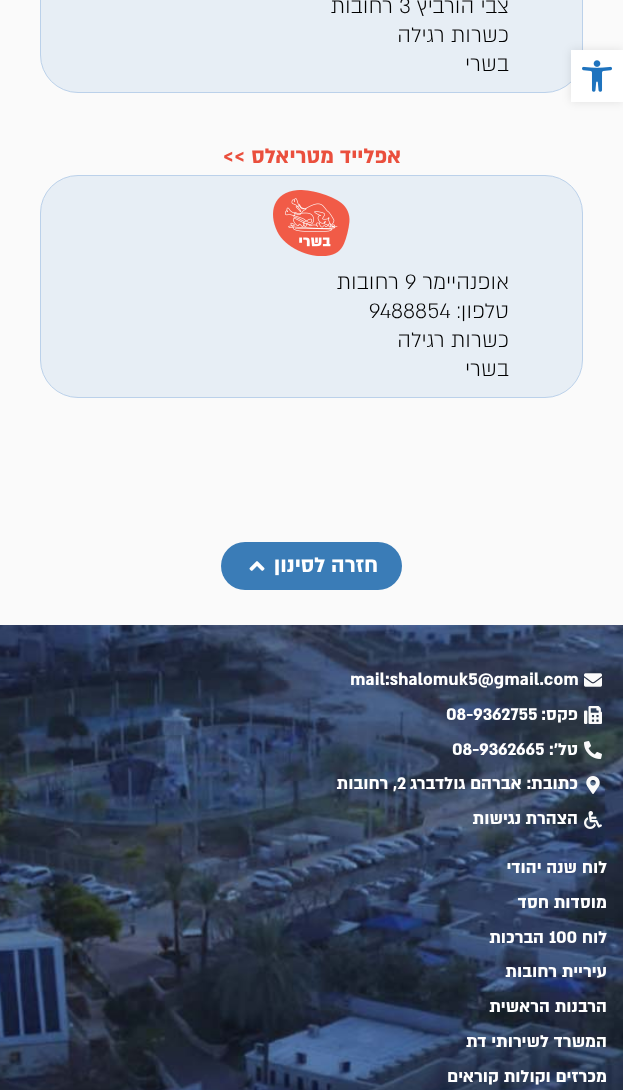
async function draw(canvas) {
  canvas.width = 623
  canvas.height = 1090
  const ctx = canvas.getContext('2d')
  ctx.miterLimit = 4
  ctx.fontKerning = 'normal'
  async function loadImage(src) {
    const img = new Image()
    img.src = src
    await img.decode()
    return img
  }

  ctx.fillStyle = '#fafafa'
  ctx.fillRect(0, 0, 623, 1090)
  ctx.fillStyle = '#e7eef5'
  ctx.beginPath()
  ctx.roundRect(40.5, -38.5, 542, 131, 37.5)
  ctx.fill()
  ctx.strokeStyle = '#bbd1ea'
  ctx.stroke()
  ctx.fillStyle = '#0000001a'
  ctx.filter = 'blur(5px)'
  ctx.beginPath()
  ctx.rect(571, 50, 52, 52)
  ctx.fill()
  ctx.filter = 'none'
  ctx.fillStyle = '#fff'
  ctx.fillRect(571, 50, 52, 52)
  ctx.drawImage(await loadImage('image0.png'), 582, 60, 30, 32)
  ctx.direction = 'rtl'
  ctx.font = '300 24px "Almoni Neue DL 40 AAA"'
  ctx.fillStyle = '#000'
  ctx.fillText('צבי הורביץ', 509, 13)
  ctx.direction = 'ltr'
  ctx.fillText('3', 399, 13)
  ctx.direction = 'rtl'
  ctx.fillText('רחובות', 393, 13)
  ctx.fillText('כשרות רגילה', 509, 42)
  ctx.fillText('בשרי', 509, 71)
  ctx.font = 'bold 24px "Almoni Neue DL 40 AAA"'
  ctx.fillStyle = '#ea4f3d'
  ctx.fillText('אפלייד מטריאלס >>', 401, 163)
  ctx.fillStyle = '#e7eef5'
  ctx.beginPath()
  ctx.roundRect(40.5, 175.5, 542, 222, 37.5)
  ctx.fill()
  ctx.stroke()
  ctx.drawImage(await loadImage('image1.png'), 273, 190, 77, 66)
  ctx.font = '300 24px "Almoni Neue DL 40 AAA"'
  ctx.fillStyle = '#000'
  ctx.fillText('אופנהיימר', 509, 289)
  ctx.direction = 'ltr'
  ctx.fillText('9', 405, 289)
  ctx.direction = 'rtl'
  ctx.fillText('רחובות', 399, 289)
  ctx.fillText('טלפון:', 509, 318)
  ctx.direction = 'ltr'
  ctx.fillText('9488854', 369, 318)
  ctx.direction = 'rtl'
  ctx.fillText('כשרות רגילה', 509, 347)
  ctx.fillText('בשרי', 509, 376)
  ctx.fillStyle = '#3a7cb7'
  ctx.beginPath()
  ctx.roundRect(221, 542, 181, 48, 24)
  ctx.fill()
  ctx.font = 'bold 24px "Almoni Neue DL 40 AAA"'
  ctx.fillStyle = '#fff'
  ctx.fillText('חזרה לסינון', 378, 572)
  ctx.drawImage(await loadImage('image2.png'), 249, 561, 16, 10)
  ctx.drawImage(await loadImage('image3.png'), 0, 625, 623, 465)
  ctx.drawImage(await loadImage('image4.png'), 584, 673, 18, 14)
  ctx.direction = 'ltr'
  ctx.font = 'bold 19.25px "Almoni Neue DL 40 AAA"'
  ctx.fillText('mail:shalomuk5@gmail.com', 350, 685)
  ctx.drawImage(await loadImage('image5.png'), 584, 706, 18, 18)
  ctx.direction = 'rtl'
  ctx.fillText('פקס:', 578, 720)
  ctx.direction = 'ltr'
  ctx.fillText('08-9362755', 446, 720)
  ctx.drawImage(await loadImage('image6.png'), 584, 741, 18, 18)
  ctx.direction = 'rtl'
  ctx.fillText('טל׳:', 578, 755)
  ctx.direction = 'ltr'
  ctx.fillText('08-9362665', 452, 755)
  ctx.drawImage(await loadImage('image7.png'), 586, 776, 14, 18)
  ctx.direction = 'rtl'
  ctx.fillText('כתובת: אברהם גולדברג', 578, 789)
  ctx.direction = 'ltr'
  ctx.fillText('2', 397, 789)
  ctx.direction = 'rtl'
  ctx.fillText(', רחובות', 397, 789)
  ctx.drawImage(await loadImage('image8.png'), 584, 811, 18, 18)
  ctx.fillText('הצהרת נגישות', 578, 824)
  ctx.fillText('לוח שנה יהודי', 607, 873)
  ctx.fillText('מוסדות חסד', 607, 908)
  ctx.fillText('לוח', 607, 943)
  ctx.direction = 'ltr'
  ctx.fillText('100', 549, 943)
  ctx.direction = 'rtl'
  ctx.fillText('הברכות', 544, 943)
  ctx.fillText('עיריית רחובות', 607, 977)
  ctx.fillText('הרבנות הראשית', 607, 1012)
  ctx.fillText('המשרד לשירותי דת', 607, 1047)
  ctx.fillText('מכרזים וקולות קוראים', 607, 1082)
}

draw(document.querySelector('canvas'))
